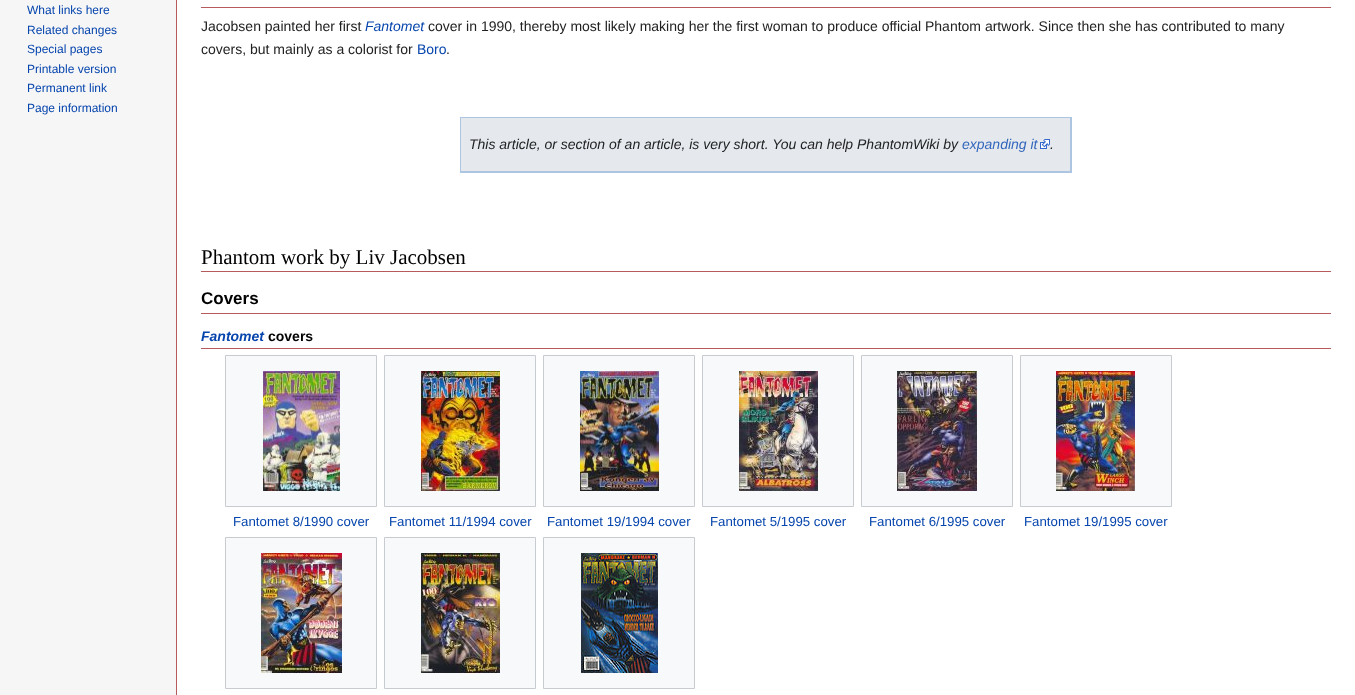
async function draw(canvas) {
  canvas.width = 1355
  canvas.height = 695
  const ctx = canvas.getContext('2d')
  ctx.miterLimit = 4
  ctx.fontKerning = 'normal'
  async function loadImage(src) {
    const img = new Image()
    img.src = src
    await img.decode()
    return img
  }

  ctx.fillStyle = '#f6f6f6'
  ctx.fillRect(0, 0, 1355, 695)
  ctx.font = '12px Liberation Sans'
  ctx.fillStyle = '#0645ad'
  ctx.fillText('What links here', 27, 14)
  ctx.fillText('Related changes', 27, 34)
  ctx.fillText('Special pages', 27, 53)
  ctx.fillText('Printable version', 27, 73)
  ctx.fillText('Permanent link', 27, 92)
  ctx.fillText('Page information', 27, 112)
  ctx.fillStyle = '#fff'
  ctx.fillRect(177, 0, 1178, 695)
  ctx.fillStyle = '#b75a5e'
  ctx.fillRect(176, 0, 1, 695)
  ctx.fillRect(201, 7, 1130, 1)
  ctx.font = '14px Liberation Sans'
  ctx.fillStyle = '#202122'
  ctx.fillText('Jacobsen painted her first', 201, 31)
  ctx.font = 'italic 14px Liberation Sans'
  ctx.fillStyle = '#0645ad'
  ctx.fillText('Fantomet', 365, 31)
  ctx.font = '14px Liberation Sans'
  ctx.fillStyle = '#202122'
  ctx.fillText('cover in 1990, thereby most likely making her the first woman to produce official Phantom artwork. Since then she has contributed to many', 428, 31)
  ctx.fillText('covers, but mainly as a colorist for', 201, 54)
  ctx.fillStyle = '#0645ad'
  ctx.fillText('Boro', 417, 54)
  ctx.fillStyle = '#202122'
  ctx.fillText('.', 446, 54)
  ctx.fillStyle = '#e5e9ee'
  ctx.fillRect(461, 118, 609, 53)
  ctx.fillStyle = '#acc6e1'
  ctx.fillRect(460, 117, 612, 1)
  ctx.fillRect(1070, 117, 2, 56)
  ctx.fillRect(460, 171, 612, 2)
  ctx.fillRect(460, 117, 1, 56)
  ctx.font = 'italic 14px Liberation Sans'
  ctx.fillStyle = '#202122'
  ctx.fillText('This article, or section of an article, is very short. You can help PhantomWiki by', 469, 149)
  ctx.fillStyle = '#36b'
  ctx.fillText('expanding it', 962, 149)
  ctx.drawImage(await loadImage('image0.png'), 1040, 139, 10, 10)
  ctx.fillStyle = '#202122'
  ctx.fillText('.', 1050, 149)
  ctx.fillStyle = '#b75a5e'
  ctx.fillRect(201, 271, 1130, 1)
  ctx.font = '21px Liberation Serif'
  ctx.fillStyle = '#000'
  ctx.fillText('Phantom work by Liv Jacobsen', 201, 264)
  ctx.fillStyle = '#b75a5e'
  ctx.fillRect(201, 313, 1130, 1)
  ctx.font = 'bold 17px Liberation Sans'
  ctx.fillStyle = '#000'
  ctx.fillText('Covers', 201, 304)
  ctx.fillStyle = '#b75a5e'
  ctx.fillRect(201, 348, 1130, 1)
  ctx.font = 'italic bold 14px Liberation Sans'
  ctx.fillStyle = '#0645ad'
  ctx.fillText('Fantomet', 201, 341)
  ctx.font = 'bold 14px Liberation Sans'
  ctx.fillStyle = '#000'
  ctx.fillText('covers', 268, 341)
  ctx.fillStyle = '#f8f9fa'
  ctx.beginPath()
  ctx.rect(225.5, 355.5, 151, 151)
  ctx.fill()
  ctx.strokeStyle = '#c8ccd1'
  ctx.stroke()
  ctx.drawImage(await loadImage('image1.png'), 263, 371, 77, 120)
  ctx.font = '13.25px Liberation Sans'
  ctx.fillStyle = '#0645ad'
  ctx.fillText('Fantomet 8/1990 cover', 233, 526)
  ctx.fillStyle = '#f8f9fa'
  ctx.beginPath()
  ctx.rect(384.5, 355.5, 151, 151)
  ctx.fill()
  ctx.stroke()
  ctx.drawImage(await loadImage('image2.png'), 421, 371, 79, 120)
  ctx.fillStyle = '#0645ad'
  ctx.fillText('Fantomet 11/1994 cover', 389, 526)
  ctx.fillStyle = '#f8f9fa'
  ctx.beginPath()
  ctx.rect(543.5, 355.5, 151, 151)
  ctx.fill()
  ctx.stroke()
  ctx.drawImage(await loadImage('image3.png'), 580, 371, 79, 120)
  ctx.fillStyle = '#0645ad'
  ctx.fillText('Fantomet 19/1994 cover', 547, 526)
  ctx.fillStyle = '#f8f9fa'
  ctx.beginPath()
  ctx.rect(702.5, 355.5, 151, 151)
  ctx.fill()
  ctx.stroke()
  ctx.drawImage(await loadImage('image4.png'), 739, 371, 79, 120)
  ctx.fillStyle = '#0645ad'
  ctx.fillText('Fantomet 5/1995 cover', 710, 526)
  ctx.fillStyle = '#f8f9fa'
  ctx.beginPath()
  ctx.rect(861.5, 355.5, 151, 151)
  ctx.fill()
  ctx.stroke()
  ctx.drawImage(await loadImage('image5.png'), 897, 371, 80, 120)
  ctx.fillStyle = '#0645ad'
  ctx.fillText('Fantomet 6/1995 cover', 869, 526)
  ctx.fillStyle = '#f8f9fa'
  ctx.beginPath()
  ctx.rect(1020.5, 355.5, 151, 151)
  ctx.fill()
  ctx.stroke()
  ctx.drawImage(await loadImage('image6.png'), 1056, 371, 79, 120)
  ctx.fillStyle = '#0645ad'
  ctx.fillText('Fantomet 19/1995 cover', 1024, 526)
  ctx.fillStyle = '#f8f9fa'
  ctx.beginPath()
  ctx.rect(225.5, 537.5, 151, 151)
  ctx.fill()
  ctx.stroke()
  ctx.drawImage(await loadImage('image7.png'), 261, 553, 81, 120)
  ctx.beginPath()
  ctx.rect(384.5, 537.5, 151, 151)
  ctx.fill()
  ctx.stroke()
  ctx.drawImage(await loadImage('image8.png'), 421, 553, 79, 120)
  ctx.beginPath()
  ctx.rect(543.5, 537.5, 151, 151)
  ctx.fill()
  ctx.stroke()
  ctx.drawImage(await loadImage('image9.png'), 581, 553, 77, 120)
}

draw(document.querySelector('canvas'))
